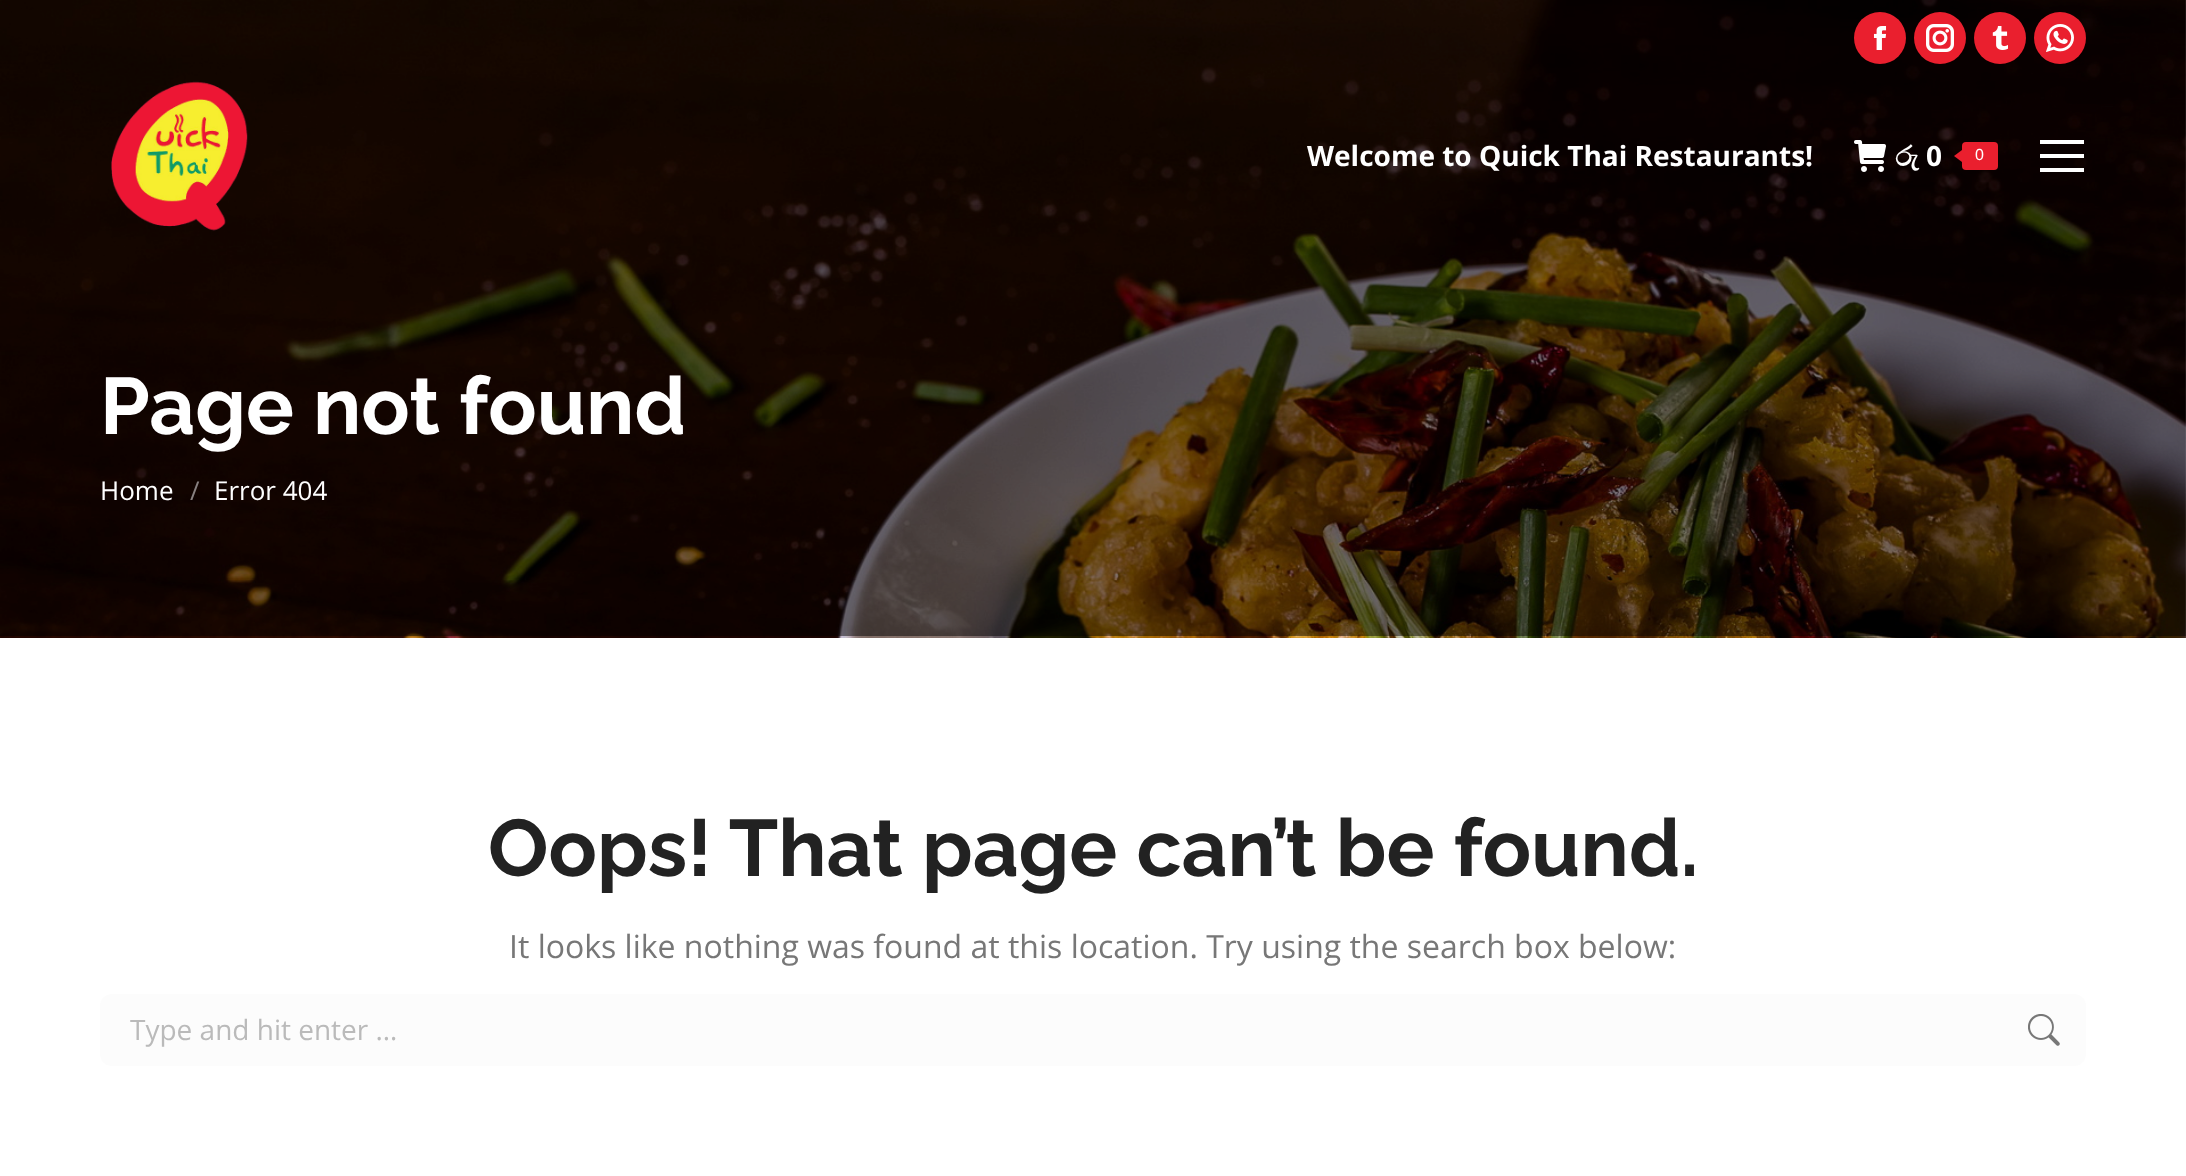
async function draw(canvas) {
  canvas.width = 2186
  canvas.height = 1176
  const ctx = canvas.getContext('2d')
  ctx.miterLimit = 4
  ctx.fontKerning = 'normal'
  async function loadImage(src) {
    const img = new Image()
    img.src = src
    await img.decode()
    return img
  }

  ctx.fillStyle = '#fff'
  ctx.fillRect(0, 0, 2186, 1176)
  ctx.drawImage(await loadImage('image6.png'), 0, 0, 2186, 638)
  ctx.fillStyle = '#ea1f2e'
  ctx.beginPath()
  ctx.arc(1880, 38, 26, 0, 2 * Math.PI)
  ctx.fill()
  ctx.drawImage(await loadImage('image0.png'), 1873, 26, 14, 24)
  ctx.beginPath()
  ctx.arc(1940, 38, 26, 0, 2 * Math.PI)
  ctx.fill()
  ctx.drawImage(await loadImage('image1.png'), 1926, 24, 28, 28)
  ctx.beginPath()
  ctx.arc(2000, 38, 26, 0, 2 * Math.PI)
  ctx.fill()
  ctx.drawImage(await loadImage('image2.png'), 1992, 26, 16, 24)
  ctx.beginPath()
  ctx.arc(2060, 38, 26, 0, 2 * Math.PI)
  ctx.fill()
  ctx.drawImage(await loadImage('image3.png'), 2046, 24, 28, 28)
  ctx.drawImage(await loadImage('image4.png'), 111, 81, 137, 150)
  ctx.font = 'bold 28px Open Sans'
  ctx.fillStyle = '#fff'
  ctx.fillText('Welcome to Quick Thai Restaurants!', 1307, 166)
  ctx.drawImage(await loadImage('image5.png'), 1854, 140, 32, 32)
  ctx.font = 'bold 28px FreeSerif'
  ctx.fillText('රු', 1895, 166)
  ctx.font = 'bold 28px Open Sans'
  ctx.fillText('0', 1926, 166)
  ctx.fillStyle = '#ea1f2e'
  ctx.beginPath()
  ctx.roundRect(1962, 142, 36, 28, 4)
  ctx.fill()
  ctx.beginPath()
  ctx.moveTo(1962, 150)
  ctx.lineTo(1962, 162)
  ctx.lineTo(1954, 156)
  ctx.closePath()
  ctx.fill()
  ctx.font = '16px Liberation Sans'
  ctx.fillStyle = '#fff'
  ctx.fillText('0', 1975, 160)
  ctx.fillRect(2040, 140, 44, 4)
  ctx.fillRect(2040, 154, 44, 4)
  ctx.fillRect(2040, 168, 44, 4)
  ctx.font = 'bold 80px Raleway'
  ctx.fillText('Page not found', 100, 434)
  ctx.font = '26px Open Sans'
  ctx.fillText('Home', 100, 500)
  ctx.fillStyle = '#888180'
  ctx.fillText('/', 190, 500)
  ctx.fillStyle = '#fff'
  ctx.fillText('Error 404', 214, 500)
  ctx.font = 'bold 80px Raleway'
  ctx.fillStyle = '#222'
  ctx.fillText('Oops! That page can’t be found.', 488, 876)
  ctx.font = '32px Open Sans'
  ctx.fillStyle = '#777'
  ctx.fillText('It looks like nothing was found at this location. Try using the search box below:', 509, 958)
  ctx.fillStyle = '#fcfcfc'
  ctx.beginPath()
  ctx.roundRect(100, 994, 1986, 72, 12)
  ctx.fill()
  ctx.font = '28px Open Sans'
  ctx.fillStyle = '#bababa'
  ctx.fillText('Type and hit enter …', 130, 1040)
  ctx.drawImage(await loadImage('image7.png'), 2028, 1014, 32, 32)
}

draw(document.querySelector('canvas'))
